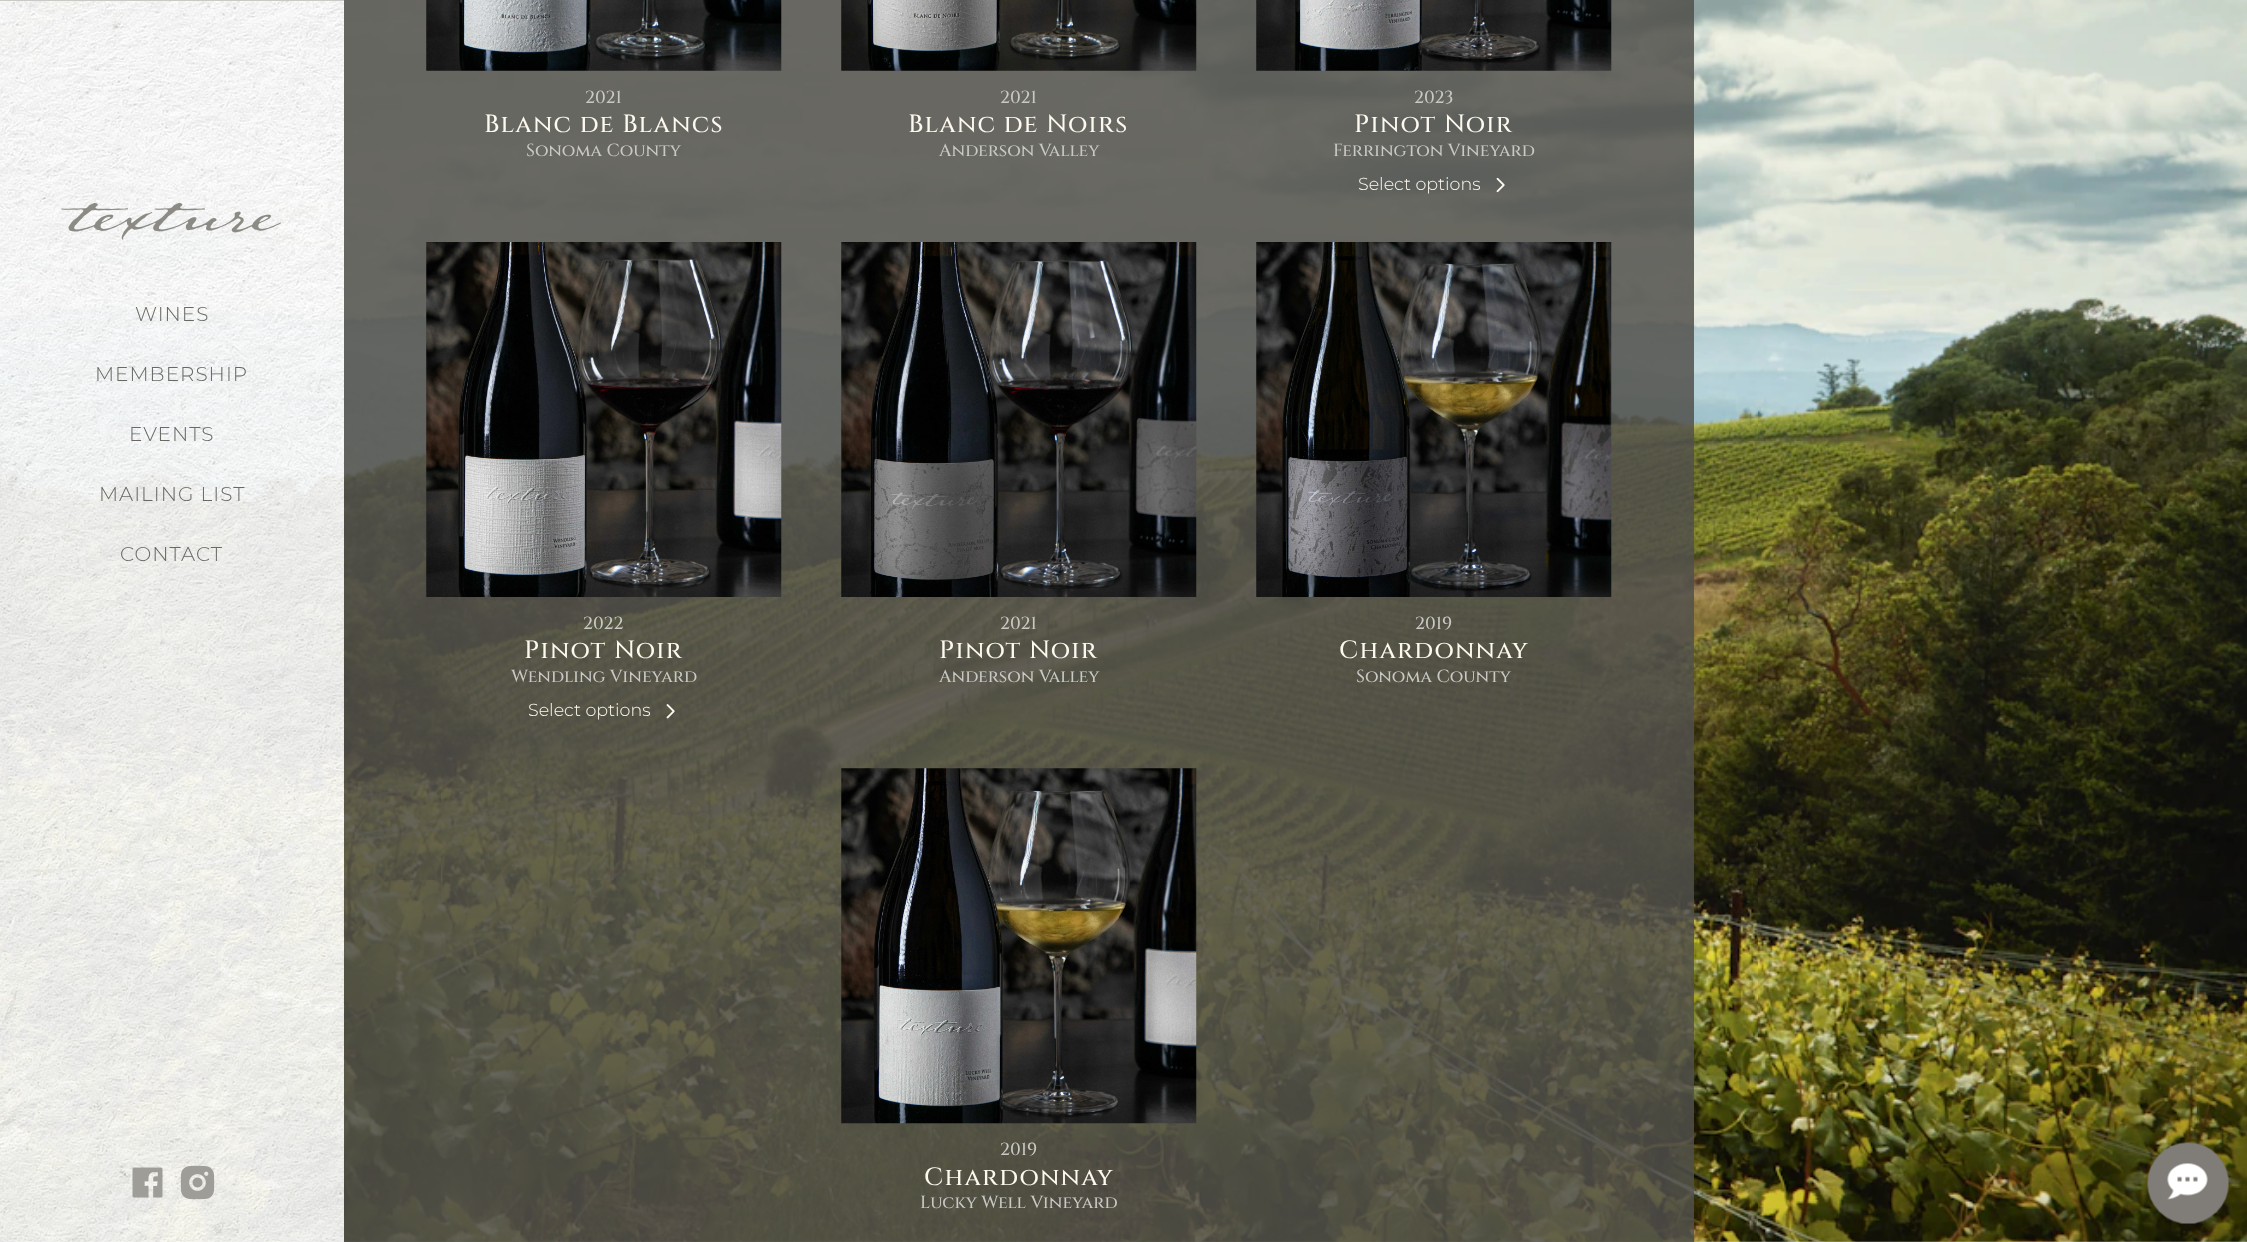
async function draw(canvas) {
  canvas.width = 2247
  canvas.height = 1242
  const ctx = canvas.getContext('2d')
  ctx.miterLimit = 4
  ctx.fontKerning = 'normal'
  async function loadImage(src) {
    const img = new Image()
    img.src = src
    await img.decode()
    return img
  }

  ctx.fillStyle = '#fff'
  ctx.fillRect(0, 0, 2247, 1242)
  ctx.drawImage(await loadImage('image0.png'), 0, 0, 2247, 1242)
  ctx.fillStyle = '#ffffffd9'
  ctx.fillRect(0, 1, 344, 1241)
  ctx.fillStyle = '#c9c9c6'
  ctx.fillRect(0, 0, 344, 1)
  ctx.drawImage(await loadImage('image1.png'), 0, 1, 344, 1241)
  ctx.drawImage(await loadImage('image2.png'), 61, 202, 220, 38)
  ctx.letterSpacing = '1px'
  ctx.font = '300 20px Montserrat'
  ctx.fillStyle = '#696863'
  ctx.fillText('WINES', 135, 321)
  ctx.fillText('MEMBERSHIP', 95, 381)
  ctx.fillText('EVENTS', 129, 441)
  ctx.fillText('MAILING LIST', 99, 501)
  ctx.fillText('CONTACT', 120, 561)
  ctx.drawImage(await loadImage('image3.png'), 132, 1167, 31, 31)
  ctx.drawImage(await loadImage('image4.png'), 180, 1165, 35, 35)
  ctx.fillStyle = '#51504bd9'
  ctx.fillRect(344, 0, 1350, 1242)
  ctx.drawImage(await loadImage('image5.png'), 426, 0, 356, 71)
  ctx.letterSpacing = '0px'
  ctx.font = '500 17.5px Cinzel'
  ctx.fillStyle = '#c9c9c6'
  ctx.fillText('2021', 585, 103)
  ctx.letterSpacing = '1.25px'
  ctx.font = '500 25px Cinzel'
  ctx.fillStyle = '#fef9ef'
  ctx.fillText('Blanc de Blancs', 484, 132)
  ctx.letterSpacing = '0px'
  ctx.font = '500 17.5px Cinzel'
  ctx.fillStyle = '#c9c9c6'
  ctx.fillText('Sonoma County', 526, 156)
  ctx.drawImage(await loadImage('image6.png'), 841, 0, 356, 71)
  ctx.fillText('2021', 1000, 103)
  ctx.letterSpacing = '1.25px'
  ctx.font = '500 25px Cinzel'
  ctx.fillStyle = '#fef9ef'
  ctx.fillText('Blanc de Noirs', 908, 132)
  ctx.letterSpacing = '0px'
  ctx.font = '500 17.5px Cinzel'
  ctx.fillStyle = '#c9c9c6'
  ctx.fillText('Anderson Valley', 939, 156)
  ctx.drawImage(await loadImage('image7.png'), 1256, 0, 356, 71)
  ctx.fillText('2023', 1414, 103)
  ctx.letterSpacing = '1.25px'
  ctx.font = '500 25px Cinzel'
  ctx.fillStyle = '#fef9ef'
  ctx.fillText('Pinot Noir', 1354, 132)
  ctx.letterSpacing = '0px'
  ctx.font = '500 17.5px Cinzel'
  ctx.fillStyle = '#c9c9c6'
  ctx.fillText('Ferrington Vineyard', 1333, 156)
  ctx.font = '300 17.5px Montserrat'
  ctx.fillStyle = '#fef9ef'
  ctx.fillText('Select options', 1358, 190)
  ctx.drawImage(await loadImage('image8.png'), 1496, 177, 9, 16)
  ctx.drawImage(await loadImage('image9.png'), 426, 242, 356, 355)
  ctx.font = '500 17.5px Cinzel'
  ctx.fillStyle = '#c9c9c6'
  ctx.fillText('2022', 583, 629)
  ctx.letterSpacing = '1.25px'
  ctx.font = '500 25px Cinzel'
  ctx.fillStyle = '#fef9ef'
  ctx.fillText('Pinot Noir', 524, 658)
  ctx.letterSpacing = '0px'
  ctx.font = '500 17.5px Cinzel'
  ctx.fillStyle = '#c9c9c6'
  ctx.fillText('Wendling Vineyard', 511, 682)
  ctx.font = '300 17.5px Montserrat'
  ctx.fillStyle = '#fef9ef'
  ctx.fillText('Select options', 528, 716)
  ctx.drawImage(await loadImage('image10.png'), 666, 704, 9, 15)
  ctx.drawImage(await loadImage('image11.png'), 841, 242, 356, 355)
  ctx.font = '500 17.5px Cinzel'
  ctx.fillStyle = '#c9c9c6'
  ctx.fillText('2021', 1000, 629)
  ctx.letterSpacing = '1.25px'
  ctx.font = '500 25px Cinzel'
  ctx.fillStyle = '#fef9ef'
  ctx.fillText('Pinot Noir', 939, 658)
  ctx.letterSpacing = '0px'
  ctx.font = '500 17.5px Cinzel'
  ctx.fillStyle = '#c9c9c6'
  ctx.fillText('Anderson Valley', 939, 682)
  ctx.drawImage(await loadImage('image12.png'), 1256, 242, 356, 355)
  ctx.fillText('2019', 1415, 629)
  ctx.letterSpacing = '1.25px'
  ctx.font = '500 25px Cinzel'
  ctx.fillStyle = '#fef9ef'
  ctx.fillText('Chardonnay', 1339, 658)
  ctx.letterSpacing = '0px'
  ctx.font = '500 17.5px Cinzel'
  ctx.fillStyle = '#c9c9c6'
  ctx.fillText('Sonoma County', 1356, 682)
  ctx.drawImage(await loadImage('image13.png'), 841, 768, 356, 356)
  ctx.fillText('2019', 1000, 1155)
  ctx.letterSpacing = '1.25px'
  ctx.font = '500 25px Cinzel'
  ctx.fillStyle = '#fef9ef'
  ctx.fillText('Chardonnay', 924, 1185)
  ctx.letterSpacing = '0px'
  ctx.font = '500 17.5px Cinzel'
  ctx.fillStyle = '#c9c9c6'
  ctx.fillText('Lucky Well Vineyard', 920, 1208)
  ctx.drawImage(await loadImage('image14.png'), 2147, 1142, 82, 82)
}

draw(document.querySelector('canvas'))
